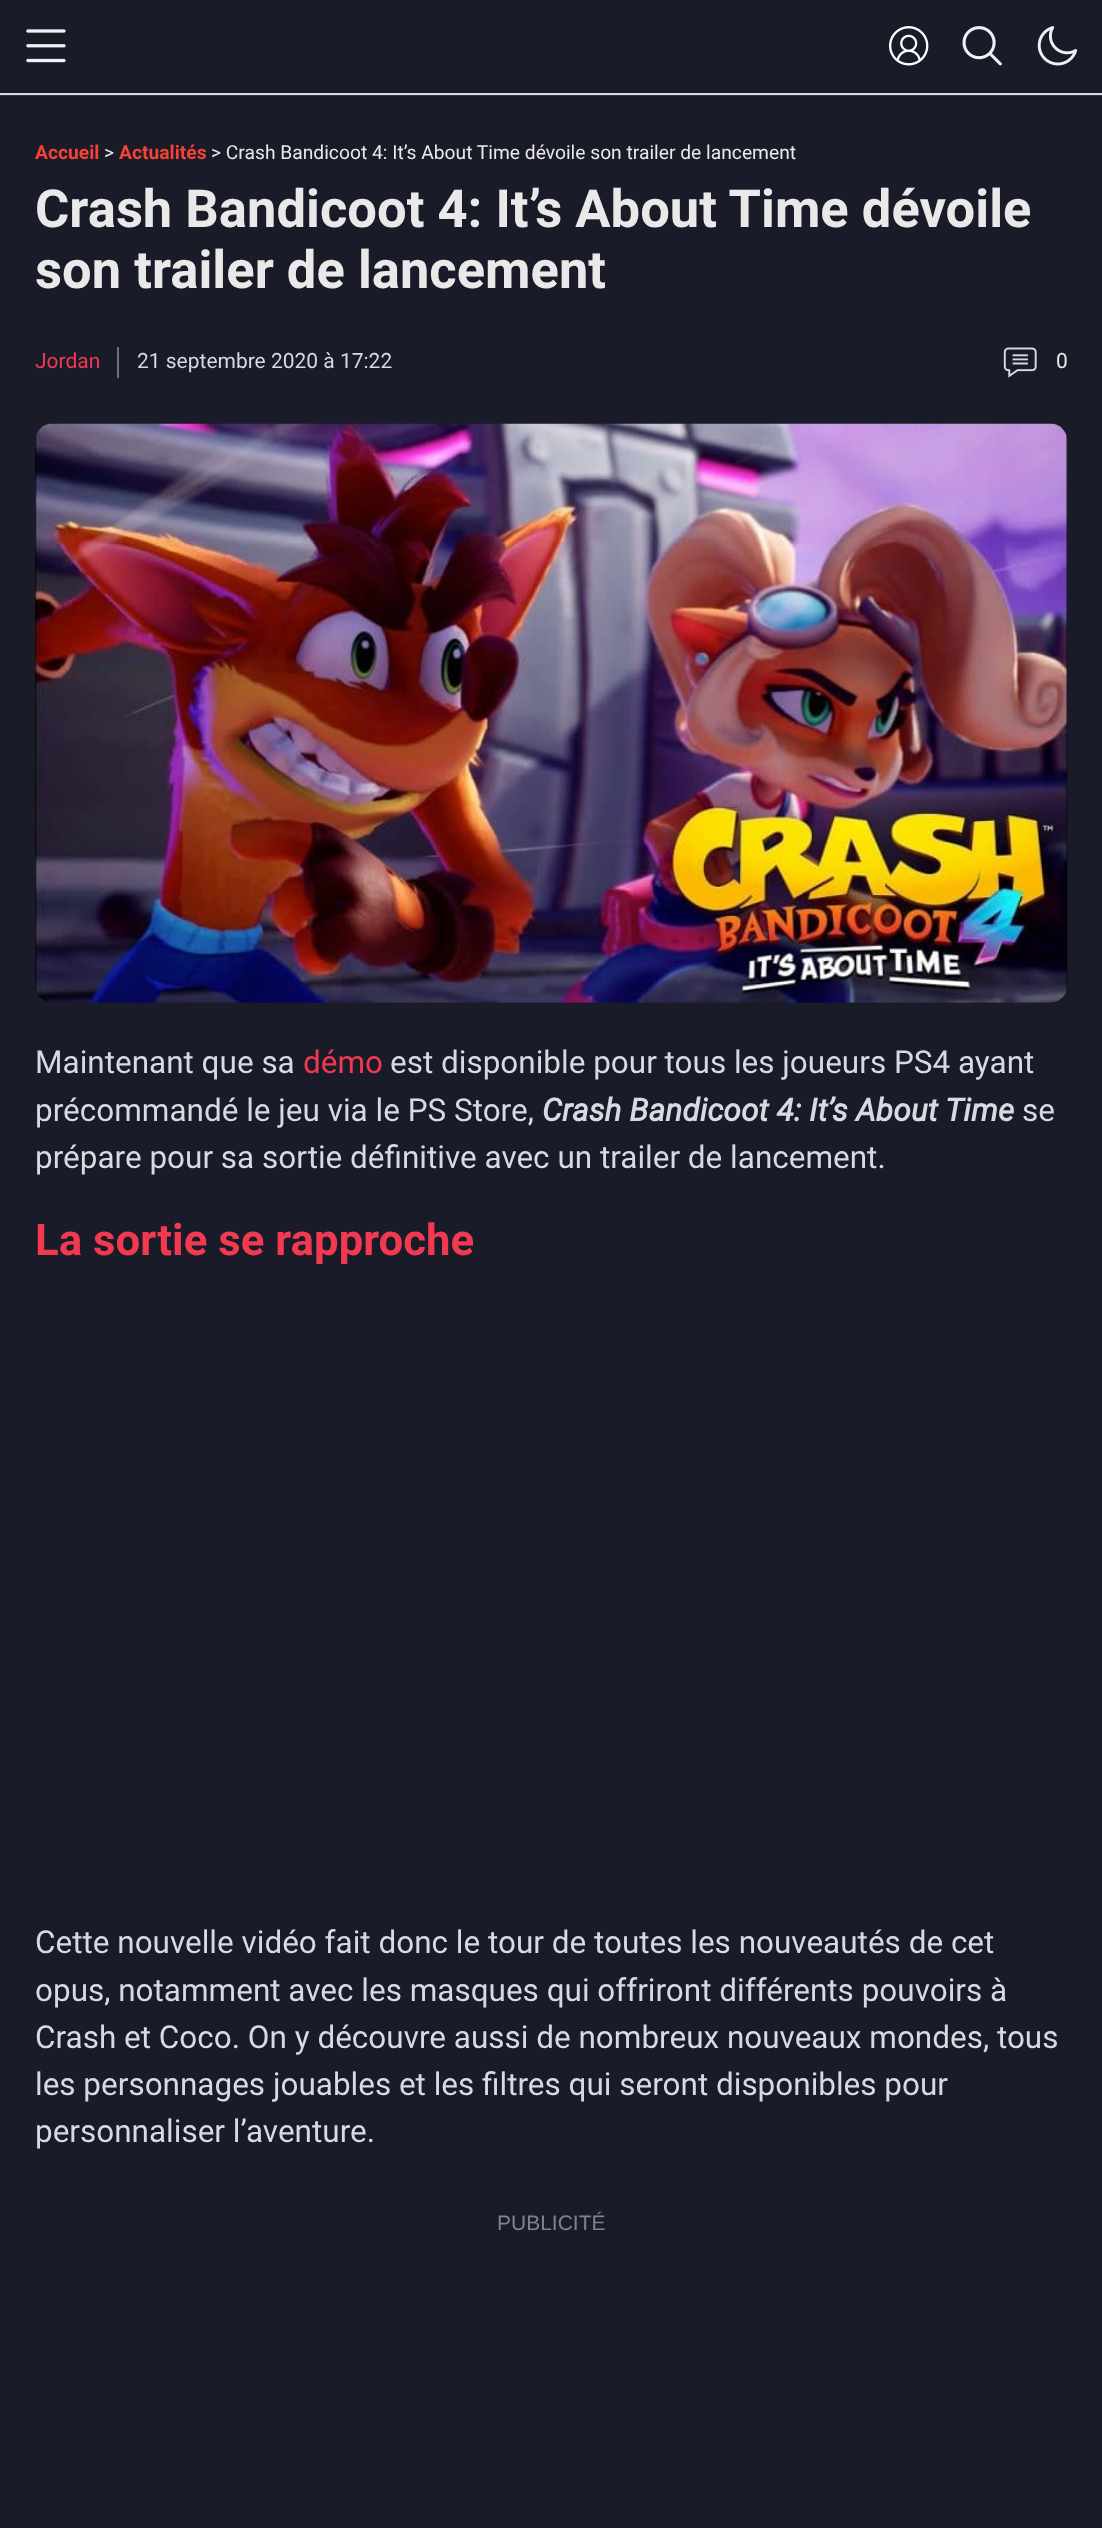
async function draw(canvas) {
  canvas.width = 1102
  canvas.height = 2528
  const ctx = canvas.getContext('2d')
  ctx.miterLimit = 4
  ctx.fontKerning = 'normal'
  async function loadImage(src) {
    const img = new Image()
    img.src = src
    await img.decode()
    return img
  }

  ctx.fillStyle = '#2b2d42'
  ctx.fillRect(0, 0, 1102, 2528)
  ctx.fillStyle = '#1a1b28'
  ctx.fillRect(0, 0, 1102, 93)
  ctx.fillStyle = '#d6dae2'
  ctx.fillRect(0, 93, 1102, 2)
  ctx.drawImage(await loadImage('image0.png'), 26, 29, 40, 34)
  ctx.drawImage(await loadImage('image1.png'), 889, 26, 40, 40)
  ctx.drawImage(await loadImage('image2.png'), 962, 26, 40, 40)
  ctx.drawImage(await loadImage('image3.png'), 1037, 26, 41, 40)
  ctx.fillStyle = '#1a1b28'
  ctx.fillRect(0, 96, 1102, 2432)
  ctx.font = 'bold 19.25px Roboto'
  ctx.fillStyle = '#f44336'
  ctx.fillText('Accueil', 35, 159)
  ctx.font = '19.25px Roboto'
  ctx.fillStyle = '#e9e9e9'
  ctx.fillText('>', 104, 159)
  ctx.font = 'bold 19.25px Roboto'
  ctx.fillStyle = '#f44336'
  ctx.fillText('Actualités', 119, 159)
  ctx.font = '19.25px Roboto'
  ctx.fillStyle = '#e9e9e9'
  ctx.fillText('> Crash Bandicoot 4: It’s About Time dévoile son trailer de lancement', 211, 159)
  ctx.font = 'bold 52.5px Roboto'
  ctx.fillText('Crash Bandicoot 4: It’s About Time dévoile', 35, 227)
  ctx.fillText('son trailer de lancement', 35, 288)
  ctx.font = '21px Roboto'
  ctx.fillStyle = '#f13950'
  ctx.fillText('Jordan', 35, 368)
  ctx.fillStyle = '#667083'
  ctx.fillRect(117, 347, 2, 31)
  ctx.fillStyle = '#d6dae2'
  ctx.fillText('21 septembre 2020 à 17:22', 137, 368)
  ctx.drawImage(await loadImage('image4.png'), 1003, 347, 34, 31)
  ctx.fillStyle = '#e9e9e9'
  ctx.fillText('0', 1056, 368)
  ctx.drawImage(await loadImage('image5.png'), 35, 423, 1033, 580)
  ctx.font = '31.5px Roboto'
  ctx.fillStyle = '#d6dae2'
  ctx.fillText('Maintenant que sa', 35, 1073)
  ctx.fillStyle = '#f13950'
  ctx.fillText('démo', 303, 1073)
  ctx.fillStyle = '#d6dae2'
  ctx.fillText('est disponible pour tous les joueurs PS4 ayant', 390, 1073)
  ctx.fillText('précommandé le jeu via le PS Store,', 35, 1121)
  ctx.font = 'italic bold 31.5px Roboto'
  ctx.fillText('Crash Bandicoot 4: It’s About Time', 542, 1121)
  ctx.font = '31.5px Roboto'
  ctx.fillText('se', 1022, 1121)
  ctx.fillText('prépare pour sa sortie définitive avec un trailer de lancement.', 35, 1168)
  ctx.font = 'bold 43.75px Roboto'
  ctx.fillStyle = '#f13950'
  ctx.fillText('La sortie se rapproche', 35, 1255)
  ctx.font = '31.5px Roboto'
  ctx.fillStyle = '#d6dae2'
  ctx.fillText('Cette nouvelle vidéo fait donc le tour de toutes les nouveautés de cet', 35, 1953)
  ctx.fillText('opus, notamment avec les masques qui offriront différents pouvoirs à', 35, 2001)
  ctx.fillText('Crash et Coco. On y découvre aussi de nombreux nouveaux mondes, tous', 35, 2048)
  ctx.fillText('les personnages jouables et les filtres qui seront disponibles pour', 35, 2095)
  ctx.fillText('personnaliser l’aventure.', 35, 2142)
  ctx.font = '21px Liberation Sans'
  ctx.fillStyle = '#828289'
  ctx.fillText('PUBLICITÉ', 497, 2230)
}

draw(document.querySelector('canvas'))
